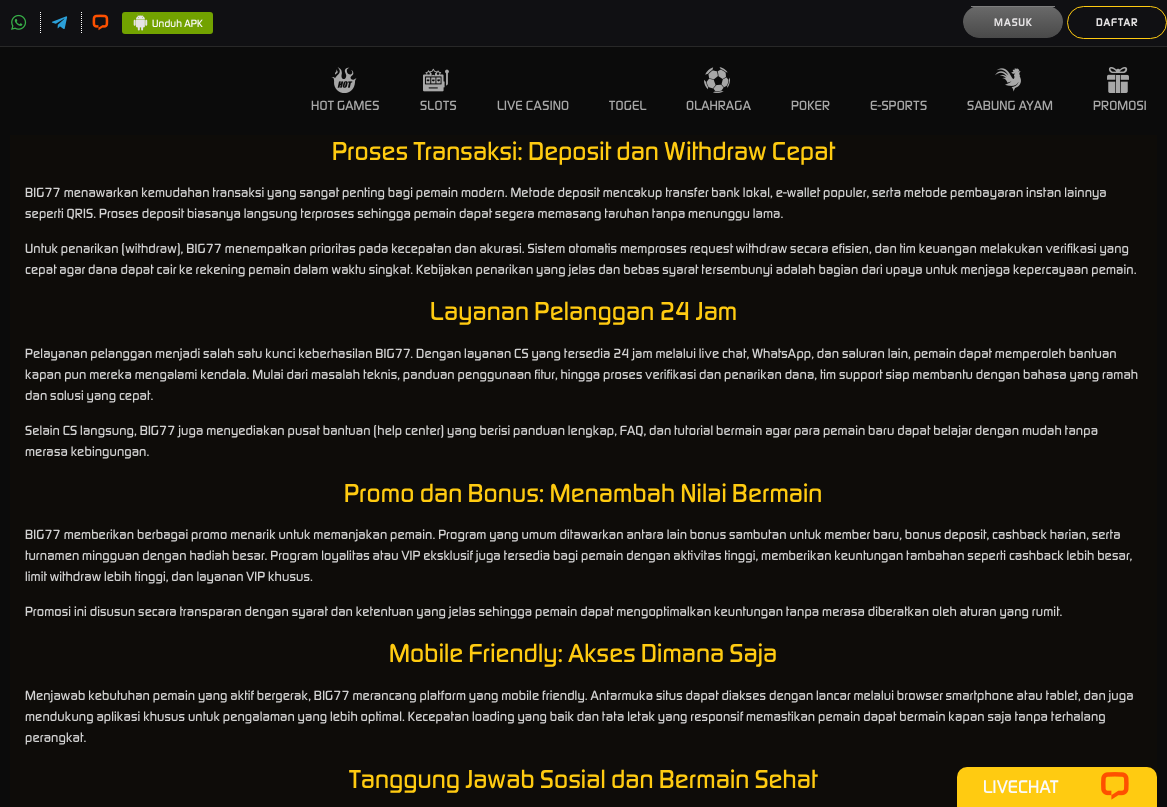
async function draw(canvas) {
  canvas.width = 1167
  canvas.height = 807
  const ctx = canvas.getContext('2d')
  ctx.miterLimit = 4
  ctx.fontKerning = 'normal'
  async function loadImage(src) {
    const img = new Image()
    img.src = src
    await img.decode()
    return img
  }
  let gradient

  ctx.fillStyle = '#0b0b0b'
  ctx.fillRect(0, 0, 1167, 807)
  ctx.fillStyle = '#101013'
  ctx.fillRect(0, 0, 1167, 46)
  ctx.beginPath()
  ctx.moveTo(40.5, 12)
  ctx.lineTo(40.5, 34)
  ctx.strokeStyle = '#fff'
  ctx.setLineDash([1, 1])
  ctx.stroke()
  ctx.drawImage(await loadImage('image0.png'), 11, 14, 16, 16)
  ctx.beginPath()
  ctx.moveTo(81.5, 12)
  ctx.lineTo(81.5, 34)
  ctx.stroke()
  ctx.drawImage(await loadImage('image1.png'), 51, 16, 17, 13)
  ctx.drawImage(await loadImage('image2.png'), 92, 14, 17, 17)
  ctx.fillStyle = '#72a200'
  ctx.beginPath()
  ctx.roundRect(122, 12, 91, 22, 3)
  ctx.fill()
  ctx.drawImage(await loadImage('image3.png'), 133, 14, 15, 17)
  ctx.letterSpacing = '0.1px'
  ctx.font = '500 11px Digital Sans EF'
  ctx.fillStyle = '#fafafa'
  ctx.fillText('Unduh APK', 152, 27)
  ctx.save()
  ctx.beginPath()
  ctx.roundRect(963, 6, 100, 32, 16)
  ctx.clip()
  gradient = ctx.createLinearGradient(1013, 7, 1013, 38)
  gradient.addColorStop(0, '#696969')
  gradient.addColorStop(1, '#494949')
  ctx.fillStyle = gradient
  ctx.beginPath()
  ctx.roundRect(963, 7, 100, 31, [0, 0, 16, 16])
  ctx.fill()
  ctx.restore()
  ctx.fillStyle = '#7e7e7e'
  ctx.fillRect(971, 6, 84, 1)
  ctx.letterSpacing = '1px'
  ctx.font = 'bold 11px Digital Sans EF'
  ctx.fillStyle = '#e6e4e5'
  ctx.fillText('MASUK', 994, 26)
  ctx.beginPath()
  ctx.roundRect(1067.5, 6.5, 99, 32, 16)
  ctx.strokeStyle = '#ffcb11'
  ctx.setLineDash([])
  ctx.stroke()
  ctx.fillText('DAFTAR', 1096, 26)
  ctx.fillStyle = '#282828'
  ctx.fillRect(0, 46, 1167, 1)
  ctx.drawImage(await loadImage('image4.png'), 331, 67, 26, 26)
  ctx.letterSpacing = '0.1px'
  ctx.font = '500 14px Digital Sans EF'
  ctx.fillStyle = '#a8a8a8'
  ctx.fillText('HOT GAMES', 311, 110)
  ctx.drawImage(await loadImage('image5.png'), 423, 68, 26, 24)
  ctx.fillText('SLOTS', 420, 110)
  ctx.fillText('LIVE CASINO', 497, 110)
  ctx.fillText('TOGEL', 609, 110)
  ctx.drawImage(await loadImage('image6.png'), 704, 67, 26, 26)
  ctx.fillText('OLAHRAGA', 686, 110)
  ctx.fillText('POKER', 791, 110)
  ctx.fillText('E-SPORTS', 870, 110)
  ctx.drawImage(await loadImage('image7.png'), 995, 68, 26, 24)
  ctx.fillText('SABUNG AYAM', 967, 110)
  ctx.drawImage(await loadImage('image8.png'), 1107, 67, 22, 26)
  ctx.fillText('PROMOSI', 1093, 110)
  ctx.fillStyle = '#0e0c09'
  ctx.fillRect(10, 135, 1147, 672)
  ctx.font = '500 27px Digital Sans EF'
  ctx.fillStyle = '#ffcb11'
  ctx.fillText('Proses Transaksi: Deposit dan Withdraw Cepat', 332, 160)
  ctx.font = '500 14px Digital Sans EF'
  ctx.fillStyle = '#d2d2d2'
  ctx.fillText('BIG77 menawarkan kemudahan transaksi yang sangat penting bagi pemain modern. Metode deposit mencakup transfer bank lokal, e-wallet populer, serta metode pembayaran instan lainnya', 25, 197)
  ctx.fillText('seperti QRIS. Proses deposit biasanya langsung terproses sehingga pemain dapat segera memasang taruhan tanpa menunggu lama.', 25, 218)
  ctx.fillText('Untuk penarikan (withdraw), BIG77 menempatkan prioritas pada kecepatan dan akurasi. Sistem otomatis memproses request withdraw secara efisien, dan tim keuangan melakukan verifikasi yang', 25, 253)
  ctx.fillText('cepat agar dana dapat cair ke rekening pemain dalam waktu singkat. Kebijakan penarikan yang jelas dan bebas syarat tersembunyi adalah bagian dari upaya untuk menjaga kepercayaan pemain.', 25, 274)
  ctx.font = '500 27px Digital Sans EF'
  ctx.fillStyle = '#ffcb11'
  ctx.fillText('Layanan Pelanggan 24 Jam', 430, 320)
  ctx.font = '500 14px Digital Sans EF'
  ctx.fillStyle = '#d2d2d2'
  ctx.fillText('Pelayanan pelanggan menjadi salah satu kunci keberhasilan BIG77. Dengan layanan CS yang tersedia 24 jam melalui live chat, WhatsApp, dan saluran lain, pemain dapat memperoleh bantuan', 25, 358)
  ctx.fillText('kapan pun mereka mengalami kendala. Mulai dari masalah teknis, panduan penggunaan fitur, hingga proses verifikasi dan penarikan dana, tim support siap membantu dengan bahasa yang ramah', 25, 379)
  ctx.fillText('dan solusi yang cepat.', 25, 400)
  ctx.fillText('Selain CS langsung, BIG77 juga menyediakan pusat bantuan (help center) yang berisi panduan lengkap, FAQ, dan tutorial bermain agar para pemain baru dapat belajar dengan mudah tanpa', 25, 435)
  ctx.fillText('merasa kebingungan.', 25, 456)
  ctx.font = '500 27px Digital Sans EF'
  ctx.fillStyle = '#ffcb11'
  ctx.fillText('Promo dan Bonus: Menambah Nilai Bermain', 344, 502)
  ctx.font = '500 14px Digital Sans EF'
  ctx.fillStyle = '#d2d2d2'
  ctx.fillText('BIG77 memberikan berbagai promo menarik untuk memanjakan pemain. Program yang umum ditawarkan antara lain bonus sambutan untuk member baru, bonus deposit, cashback harian, serta', 25, 539)
  ctx.fillText('turnamen mingguan dengan hadiah besar. Program loyalitas atau VIP eksklusif juga tersedia bagi pemain dengan aktivitas tinggi, memberikan keuntungan tambahan seperti cashback lebih besar,', 25, 560)
  ctx.fillText('limit withdraw lebih tinggi, dan layanan VIP khusus.', 25, 581)
  ctx.fillText('Promosi ini disusun secara transparan dengan syarat dan ketentuan yang jelas sehingga pemain dapat mengoptimalkan keuntungan tanpa merasa diberatkan oleh aturan yang rumit.', 25, 616)
  ctx.font = '500 27px Digital Sans EF'
  ctx.fillStyle = '#ffcb11'
  ctx.fillText('Mobile Friendly: Akses Dimana Saja', 389, 662)
  ctx.font = '500 14px Digital Sans EF'
  ctx.fillStyle = '#d2d2d2'
  ctx.fillText('Menjawab kebutuhan pemain yang aktif bergerak, BIG77 merancang platform yang mobile friendly. Antarmuka situs dapat diakses dengan lancar melalui browser smartphone atau tablet, dan juga', 25, 700)
  ctx.fillText('mendukung aplikasi khusus untuk pengalaman yang lebih optimal. Kecepatan loading yang baik dan tata letak yang responsif memastikan pemain dapat bermain kapan saja tanpa terhalang', 25, 721)
  ctx.fillText('perangkat.', 25, 742)
  ctx.font = '500 27px Digital Sans EF'
  ctx.fillStyle = '#ffcb11'
  ctx.fillText('Tanggung Jawab Sosial dan Bermain Sehat', 349, 788)
  ctx.beginPath()
  ctx.roundRect(957, 767, 200, 40, [10, 10, 0, 0])
  ctx.fill()
  ctx.font = '500 19px Digital Sans EF'
  ctx.fillStyle = '#fafafa'
  ctx.fillText('LIVECHAT', 983, 793)
  ctx.drawImage(await loadImage('image9.png'), 1101, 772, 28, 28)
}

draw(document.querySelector('canvas'))
